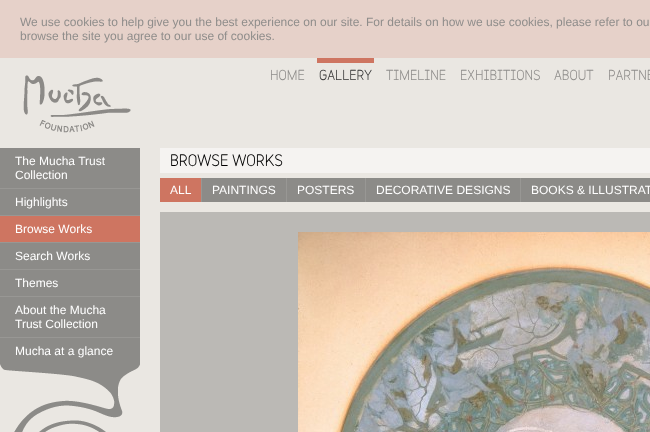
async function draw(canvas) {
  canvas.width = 650
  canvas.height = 432
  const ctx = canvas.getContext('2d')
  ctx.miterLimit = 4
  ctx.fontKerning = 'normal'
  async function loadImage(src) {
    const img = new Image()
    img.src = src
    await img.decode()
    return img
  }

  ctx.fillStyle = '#eae7e2'
  ctx.fillRect(0, 0, 650, 432)
  ctx.fillStyle = '#e6d1c9'
  ctx.fillRect(0, 0, 650, 58)
  ctx.font = '12px Liberation Sans'
  ctx.fillStyle = '#8f8d8b'
  ctx.fillText('We use cookies to help give you the best experience on our site. For details on how we use cookies, please refer to ou', 20, 26)
  ctx.fillText('browse the site you agree to our use of cookies.', 20, 40)
  ctx.drawImage(await loadImage('image0.png'), 23, 75, 108, 58)
  ctx.font = 'bold 13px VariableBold'
  ctx.fillText('HOME', 270, 80)
  ctx.fillStyle = '#ce7561'
  ctx.fillRect(317, 58, 57, 5)
  ctx.fillStyle = '#333'
  ctx.fillText('GALLERY', 319, 80)
  ctx.fillStyle = '#8f8d8b'
  ctx.fillText('TIMELINE', 386, 80)
  ctx.fillText('EXHIBITIONS', 460, 80)
  ctx.fillText('ABOUT', 554, 80)
  ctx.fillText('PARTNE', 608, 80)
  ctx.drawImage(await loadImage('image1.png'), 0, 364, 140, 68)
  ctx.fillStyle = '#8c8b88'
  ctx.fillRect(0, 148, 140, 216)
  ctx.font = '12px Liberation Sans'
  ctx.fillStyle = '#fff'
  ctx.fillText('The Mucha Trust', 15, 165)
  ctx.fillText('Collection', 15, 179)
  ctx.fillStyle = '#989794'
  ctx.fillRect(0, 188, 140, 1)
  ctx.fillStyle = '#fff'
  ctx.fillText('Highlights', 15, 206)
  ctx.fillStyle = '#989794'
  ctx.fillRect(0, 215, 140, 1)
  ctx.fillStyle = '#ce7561'
  ctx.fillRect(0, 216, 140, 26)
  ctx.fillStyle = '#fff'
  ctx.fillText('Browse Works', 15, 233)
  ctx.fillStyle = '#989794'
  ctx.fillRect(0, 242, 140, 1)
  ctx.fillStyle = '#fff'
  ctx.fillText('Search Works', 15, 260)
  ctx.fillStyle = '#989794'
  ctx.fillRect(0, 269, 140, 1)
  ctx.fillStyle = '#fff'
  ctx.fillText('Themes', 15, 287)
  ctx.fillStyle = '#989794'
  ctx.fillRect(0, 296, 140, 1)
  ctx.fillStyle = '#fff'
  ctx.fillText('About the Mucha', 15, 314)
  ctx.fillText('Trust Collection', 15, 328)
  ctx.fillStyle = '#989794'
  ctx.fillRect(0, 337, 140, 1)
  ctx.fillStyle = '#fff'
  ctx.fillText('Mucha at a glance', 15, 355)
  ctx.fillStyle = '#f5f3f1'
  ctx.fillRect(160, 148, 490, 25)
  ctx.font = 'bold 15px VariableBold'
  ctx.fillStyle = '#000'
  ctx.fillText('BROWSE WORKS', 170, 166)
  ctx.fillStyle = '#8c8b88'
  ctx.fillRect(202, 178, 448, 24)
  ctx.fillStyle = '#ce7561'
  ctx.fillRect(160, 178, 41, 24)
  ctx.font = '12px Liberation Sans'
  ctx.fillStyle = '#fff'
  ctx.fillText('ALL', 170, 194)
  ctx.fillStyle = '#989794'
  ctx.fillRect(201, 178, 1, 24)
  ctx.fillStyle = '#fff'
  ctx.fillText('PAINTINGS', 212, 194)
  ctx.fillStyle = '#989794'
  ctx.fillRect(286, 178, 1, 24)
  ctx.fillStyle = '#fff'
  ctx.fillText('POSTERS', 297, 194)
  ctx.fillStyle = '#989794'
  ctx.fillRect(365, 178, 1, 24)
  ctx.fillStyle = '#fff'
  ctx.fillText('DECORATIVE DESIGNS', 376, 194)
  ctx.fillStyle = '#989794'
  ctx.fillRect(520, 178, 1, 24)
  ctx.fillStyle = '#fff'
  ctx.fillText('BOOKS & ILLUSTRAT', 531, 194)
  ctx.fillStyle = '#bbb9b5'
  ctx.fillRect(160, 212, 490, 220)
  ctx.drawImage(await loadImage('image2.png'), 298, 232, 352, 200)
}

draw(document.querySelector('canvas'))
